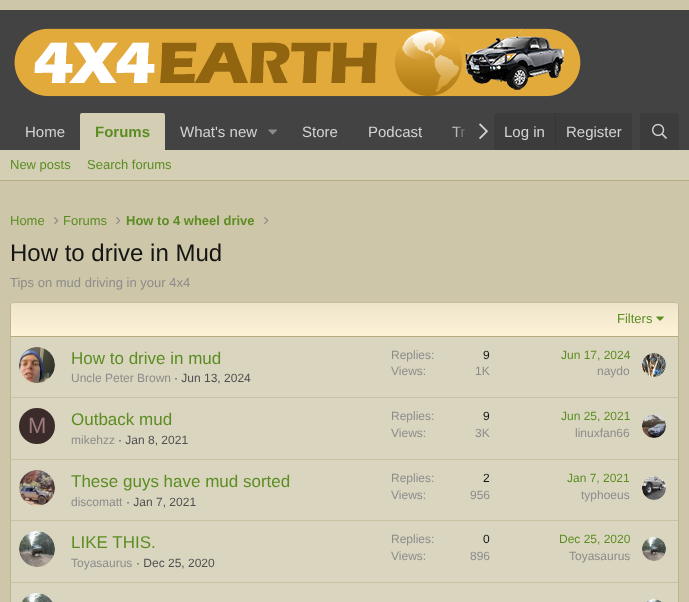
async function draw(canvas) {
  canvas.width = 689
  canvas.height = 602
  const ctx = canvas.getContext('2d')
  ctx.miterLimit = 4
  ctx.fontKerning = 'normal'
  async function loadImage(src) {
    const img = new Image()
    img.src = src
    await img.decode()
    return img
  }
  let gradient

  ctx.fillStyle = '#cdc6a8'
  ctx.fillRect(0, 0, 689, 602)
  ctx.fillStyle = '#434343'
  ctx.fillRect(0, 10, 689, 140)
  ctx.drawImage(await loadImage('image0.png'), 14, 28, 567, 69)
  ctx.font = '15px Liberation Sans'
  ctx.fillStyle = '#d3d3d3'
  ctx.fillText('Home', 25, 137)
  ctx.fillStyle = '#d3ceb4'
  ctx.beginPath()
  ctx.roundRect(80, 113, 85, 37, [2, 2, 0, 0])
  ctx.fill()
  ctx.font = 'bold 15px Liberation Sans'
  ctx.fillStyle = '#5c8d23'
  ctx.fillText('Forums', 95, 137)
  ctx.font = '15px Liberation Sans'
  ctx.fillStyle = '#d3d3d3'
  ctx.fillText('What\'s new', 180, 137)
  ctx.drawImage(await loadImage('image1.png'), 268, 129, 9, 6)
  ctx.fillText('Store', 302, 137)
  ctx.fillText('Podcast', 368, 137)
  ctx.fillText('Tr', 452, 137)
  gradient = ctx.createLinearGradient(454, 132, 494, 132)
  gradient.addColorStop(0, '#43434300')
  gradient.addColorStop(0.33, '#434343')
  ctx.fillStyle = gradient
  ctx.fillRect(454, 126, 12, 11)
  ctx.drawImage(await loadImage('image2.png'), 479, 123, 9, 16)
  ctx.fillStyle = '#3c3c3c'
  ctx.beginPath()
  ctx.roundRect(494, 113, 138, 37, [4, 4, 0, 0])
  ctx.fill()
  ctx.fillStyle = '#d3d3d3'
  ctx.fillText('Log in', 504, 137)
  ctx.fillStyle = '#363636'
  ctx.fillRect(555, 113, 1, 37)
  ctx.fillStyle = '#d3d3d3'
  ctx.fillText('Register', 566, 137)
  ctx.fillStyle = '#3c3c3c'
  ctx.beginPath()
  ctx.roundRect(640, 113, 39, 37, [4, 4, 0, 0])
  ctx.fill()
  ctx.drawImage(await loadImage('image3.png'), 652, 123, 15, 16)
  ctx.fillStyle = '#d3ceb4'
  ctx.fillRect(0, 150, 689, 30)
  ctx.fillStyle = '#b5ab7e'
  ctx.fillRect(0, 180, 689, 1)
  ctx.font = '13px Liberation Sans'
  ctx.fillStyle = '#5c8d23'
  ctx.fillText('New posts', 10, 169)
  ctx.fillText('Search forums', 87, 169)
  ctx.fillText('Home', 10, 225)
  ctx.drawImage(await loadImage('image4.png'), 54, 217, 5, 8)
  ctx.fillText('Forums', 63, 225)
  ctx.drawImage(await loadImage('image4.png'), 116, 217, 5, 8)
  ctx.font = 'bold 13px Liberation Sans'
  ctx.fillText('How to 4 wheel drive', 126, 225)
  ctx.drawImage(await loadImage('image4.png'), 264, 217, 5, 8)
  ctx.font = '24px Liberation Sans'
  ctx.fillStyle = '#141414'
  ctx.fillText('How to drive in Mud', 10, 261)
  ctx.font = '13px Liberation Sans'
  ctx.fillStyle = '#8c8c8c'
  ctx.fillText('Tips on mud driving in your 4x4', 10, 287)
  ctx.fillStyle = '#dad5bf'
  ctx.beginPath()
  ctx.roundRect(10, 302, 669, 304, 4)
  ctx.fill()
  ctx.beginPath()
  ctx.moveTo(11.5, 303.5)
  ctx.lineTo(14, 302.5)
  ctx.lineTo(675, 302.5)
  ctx.lineTo(677.5, 303.5)
  ctx.strokeStyle = '#c4bc98'
  ctx.stroke()
  ctx.beginPath()
  ctx.moveTo(677.5, 303.5)
  ctx.bezierCurveTo(678, 304, 678.5, 305, 678.5, 306)
  ctx.lineTo(678.5, 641)
  ctx.bezierCurveTo(678.5, 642, 678, 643, 677.5, 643.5)
  ctx.strokeStyle = '#beb58f'
  ctx.stroke()
  ctx.beginPath()
  ctx.moveTo(11.5, 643.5)
  ctx.bezierCurveTo(11, 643, 10.5, 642, 10.5, 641)
  ctx.lineTo(10.5, 306)
  ctx.bezierCurveTo(10.5, 305, 11, 304, 11.5, 303.5)
  ctx.stroke()
  gradient = ctx.createLinearGradient(345, 336, 345, 303)
  gradient.addColorStop(0, '#fff3d7')
  gradient.addColorStop(1, '#ede4cb')
  ctx.fillStyle = gradient
  ctx.beginPath()
  ctx.roundRect(11, 303, 667, 33, [3, 3, 0, 0])
  ctx.fill()
  ctx.fillStyle = '#b5ab7e'
  ctx.fillRect(11, 336, 667, 1)
  ctx.fillStyle = '#5c8d23'
  ctx.fillText('Filters', 617, 323)
  ctx.drawImage(await loadImage('image5.png'), 656, 316, 8, 5)
  ctx.drawImage(await loadImage('image6.png'), 19, 347, 36, 36)
  ctx.font = '17px Liberation Sans'
  ctx.fillText('How to drive in mud', 71, 364)
  ctx.font = '12px Liberation Sans'
  ctx.fillStyle = '#8c8c8c'
  ctx.fillText('Uncle Peter Brown', 71, 382)
  ctx.fillStyle = '#505050'
  ctx.fillText('· Jun 13, 2024', 174, 382)
  ctx.fillStyle = '#8c8c8c'
  ctx.fillText('Replies:', 391, 359)
  ctx.fillStyle = '#141414'
  ctx.fillText('9', 483, 359)
  ctx.fillStyle = '#8c8c8c'
  ctx.fillText('Views:', 391, 375)
  ctx.fillText('1K', 475, 375)
  ctx.fillStyle = '#5c8d23'
  ctx.fillText('Jun 17, 2024', 561, 359)
  ctx.fillStyle = '#8c8c8c'
  ctx.fillText('naydo', 597, 375)
  ctx.drawImage(await loadImage('image7.png'), 642, 353, 24, 24)
  ctx.fillStyle = '#c9c2a2'
  ctx.fillRect(11, 397, 667, 1)
  ctx.fillStyle = '#3b2b2b'
  ctx.beginPath()
  ctx.arc(37, 426, 18, 0, 2 * Math.PI)
  ctx.fill()
  ctx.font = '22px Liberation Sans'
  ctx.fillStyle = '#9d7b7b'
  ctx.fillText('M', 28, 433)
  ctx.font = '17px Liberation Sans'
  ctx.fillStyle = '#5c8d23'
  ctx.fillText('Outback mud', 71, 425)
  ctx.font = '12px Liberation Sans'
  ctx.fillStyle = '#8c8c8c'
  ctx.fillText('mikehzz', 71, 444)
  ctx.fillStyle = '#505050'
  ctx.fillText('· Jan 8, 2021', 118, 444)
  ctx.fillStyle = '#8c8c8c'
  ctx.fillText('Replies:', 391, 420)
  ctx.fillStyle = '#141414'
  ctx.fillText('9', 483, 420)
  ctx.fillStyle = '#8c8c8c'
  ctx.fillText('Views:', 391, 437)
  ctx.fillText('3K', 475, 437)
  ctx.fillStyle = '#5c8d23'
  ctx.fillText('Jun 25, 2021', 561, 420)
  ctx.fillStyle = '#8c8c8c'
  ctx.fillText('linuxfan66', 575, 437)
  ctx.drawImage(await loadImage('image8.png'), 642, 414, 24, 24)
  ctx.fillStyle = '#c9c2a2'
  ctx.fillRect(11, 459, 667, 1)
  ctx.drawImage(await loadImage('image9.png'), 19, 470, 36, 36)
  ctx.font = '17px Liberation Sans'
  ctx.fillStyle = '#5c8d23'
  ctx.fillText('These guys have mud sorted', 71, 487)
  ctx.font = '12px Liberation Sans'
  ctx.fillStyle = '#8c8c8c'
  ctx.fillText('discomatt', 71, 506)
  ctx.fillStyle = '#505050'
  ctx.fillText('· Jan 7, 2021', 126, 506)
  ctx.fillStyle = '#8c8c8c'
  ctx.fillText('Replies:', 391, 482)
  ctx.fillStyle = '#141414'
  ctx.fillText('2', 483, 482)
  ctx.fillStyle = '#8c8c8c'
  ctx.fillText('Views:', 391, 499)
  ctx.fillText('956', 470, 499)
  ctx.fillStyle = '#5c8d23'
  ctx.fillText('Jan 7, 2021', 567, 482)
  ctx.fillStyle = '#8c8c8c'
  ctx.fillText('typhoeus', 581, 499)
  ctx.drawImage(await loadImage('image10.png'), 642, 476, 24, 24)
  ctx.fillStyle = '#c9c2a2'
  ctx.fillRect(11, 520, 667, 1)
  ctx.drawImage(await loadImage('image11.png'), 19, 531, 36, 36)
  ctx.font = '17px Liberation Sans'
  ctx.fillStyle = '#5c8d23'
  ctx.fillText('LIKE THIS.', 71, 548)
  ctx.font = '12px Liberation Sans'
  ctx.fillStyle = '#8c8c8c'
  ctx.fillText('Toyasaurus', 71, 567)
  ctx.fillStyle = '#505050'
  ctx.fillText('· Dec 25, 2020', 136, 567)
  ctx.fillStyle = '#8c8c8c'
  ctx.fillText('Replies:', 391, 543)
  ctx.fillStyle = '#141414'
  ctx.fillText('0', 483, 543)
  ctx.fillStyle = '#8c8c8c'
  ctx.fillText('Views:', 391, 560)
  ctx.fillText('896', 470, 560)
  ctx.fillStyle = '#5c8d23'
  ctx.fillText('Dec 25, 2020', 559, 543)
  ctx.fillStyle = '#8c8c8c'
  ctx.fillText('Toyasaurus', 569, 560)
  ctx.drawImage(await loadImage('image12.png'), 642, 537, 24, 24)
  ctx.fillStyle = '#c9c2a2'
  ctx.fillRect(11, 582, 667, 1)
  ctx.drawImage(await loadImage('image13.png'), 21, 593, 32, 9)
  ctx.drawImage(await loadImage('image14.png'), 646, 599, 16, 3)
}

draw(document.querySelector('canvas'))
